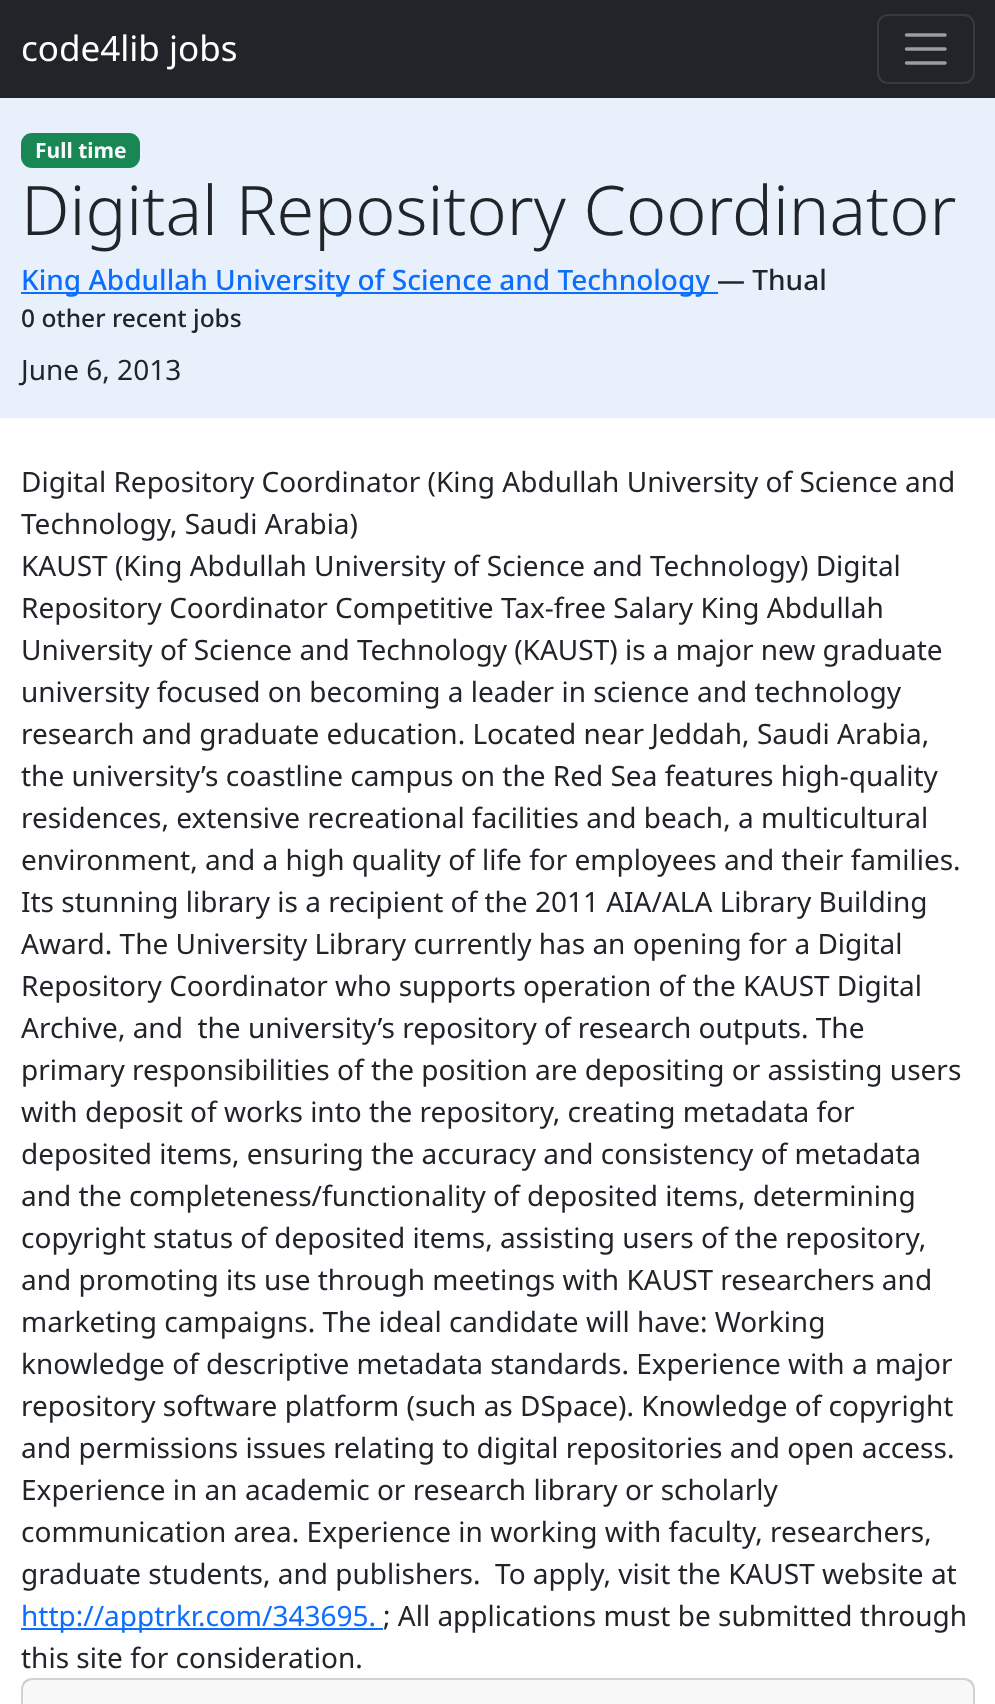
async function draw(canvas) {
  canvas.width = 995
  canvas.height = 1704
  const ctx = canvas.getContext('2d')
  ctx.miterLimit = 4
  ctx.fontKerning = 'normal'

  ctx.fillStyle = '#fff'
  ctx.fillRect(0, 0, 995, 1704)
  ctx.fillStyle = '#212529'
  ctx.fillRect(0, 0, 995, 98)
  ctx.font = '35px Noto Sans'
  ctx.fillStyle = '#fff'
  ctx.fillText('code4lib jobs', 21, 61)
  ctx.beginPath()
  ctx.roundRect(878, 15, 96, 68, 10)
  ctx.strokeStyle = '#373b3e'
  ctx.lineWidth = 2
  ctx.stroke()
  ctx.beginPath()
  ctx.moveTo(906.5, 35)
  ctx.lineTo(945, 35)
  ctx.moveTo(906.5, 49)
  ctx.lineTo(945, 49)
  ctx.moveTo(906.5, 63)
  ctx.lineTo(945, 63)
  ctx.strokeStyle = '#9b9d9f'
  ctx.lineWidth = 3.5
  ctx.lineCap = 'round'
  ctx.stroke()
  ctx.fillStyle = '#e8f0fb'
  ctx.fillRect(0, 98, 995, 320)
  ctx.fillStyle = '#198754'
  ctx.beginPath()
  ctx.roundRect(21, 133, 119, 35, 11)
  ctx.fill()
  ctx.font = 'bold 21px Noto Sans'
  ctx.fillStyle = '#f8f9fa'
  ctx.fillText('Full time', 35, 158)
  ctx.font = '300 68.25px Noto Sans'
  ctx.fillStyle = '#212529'
  ctx.fillText('Digital Repository Coordinator', 21, 235)
  ctx.fillStyle = '#0d6efd'
  ctx.fillRect(21, 292, 697, 2)
  ctx.font = '500 28px Noto Sans'
  ctx.fillText('King Abdullah University of Science and Technology', 21, 290)
  ctx.fillStyle = '#212529'
  ctx.fillText('— Thual', 717, 290)
  ctx.font = '500 24.5px Noto Sans'
  ctx.fillText('0 other recent jobs', 21, 327)
  ctx.font = '28px Noto Sans'
  ctx.fillText('June 6, 2013', 21, 380)
  ctx.fillText('Digital Repository Coordinator (King Abdullah University of Science and', 21, 492)
  ctx.fillText('Technology, Saudi Arabia)', 21, 534)
  ctx.fillText('KAUST (King Abdullah University of Science and Technology) Digital', 21, 576)
  ctx.fillText('Repository Coordinator Competitive Tax-free Salary King Abdullah', 21, 618)
  ctx.fillText('University of Science and Technology (KAUST) is a major new graduate', 21, 660)
  ctx.fillText('university focused on becoming a leader in science and technology', 21, 702)
  ctx.fillText('research and graduate education. Located near Jeddah, Saudi Arabia,', 21, 744)
  ctx.fillText('the university’s coastline campus on the Red Sea features high-quality', 21, 786)
  ctx.fillText('residences, extensive recreational facilities and beach, a multicultural', 21, 828)
  ctx.fillText('environment, and a high quality of life for employees and their families.', 21, 870)
  ctx.fillText('Its stunning library is a recipient of the 2011 AIA/ALA Library Building', 21, 912)
  ctx.fillText('Award. The University Library currently has an opening for a Digital', 21, 954)
  ctx.fillText('Repository Coordinator who supports operation of the KAUST Digital', 21, 996)
  ctx.fillText('Archive, and  the university’s repository of research outputs. The', 21, 1038)
  ctx.fillText('primary responsibilities of the position are depositing or assisting users', 21, 1080)
  ctx.fillText('with deposit of works into the repository, creating metadata for', 21, 1122)
  ctx.fillText('deposited items, ensuring the accuracy and consistency of metadata', 21, 1164)
  ctx.fillText('and the completeness/functionality of deposited items, determining', 21, 1206)
  ctx.fillText('copyright status of deposited items, assisting users of the repository,', 21, 1248)
  ctx.fillText('and promoting its use through meetings with KAUST researchers and', 21, 1290)
  ctx.fillText('marketing campaigns. The ideal candidate will have: Working', 21, 1332)
  ctx.fillText('knowledge of descriptive metadata standards. Experience with a major', 21, 1374)
  ctx.fillText('repository software platform (such as DSpace). Knowledge of copyright', 21, 1416)
  ctx.fillText('and permissions issues relating to digital repositories and open access.', 21, 1458)
  ctx.fillText('Experience in an academic or research library or scholarly', 21, 1500)
  ctx.fillText('communication area. Experience in working with faculty, researchers,', 21, 1542)
  ctx.fillText('graduate students, and publishers.  To apply, visit the KAUST website at', 21, 1584)
  ctx.fillStyle = '#0d6efd'
  ctx.fillRect(21, 1628, 362, 2)
  ctx.fillText('http://apptrkr.com/343695.', 21, 1626)
  ctx.fillStyle = '#212529'
  ctx.fillText('; All applications must be submitted through', 383, 1626)
  ctx.fillText('this site for consideration.', 21, 1668)
  ctx.beginPath()
  ctx.roundRect(22, 1679, 952, 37, 10)
  ctx.strokeStyle = '#d2d2d2'
  ctx.lineWidth = 2
  ctx.stroke()
  ctx.fillStyle = '#21252908'
  ctx.fillRect(23, 1680, 950, 24)
}

draw(document.querySelector('canvas'))
